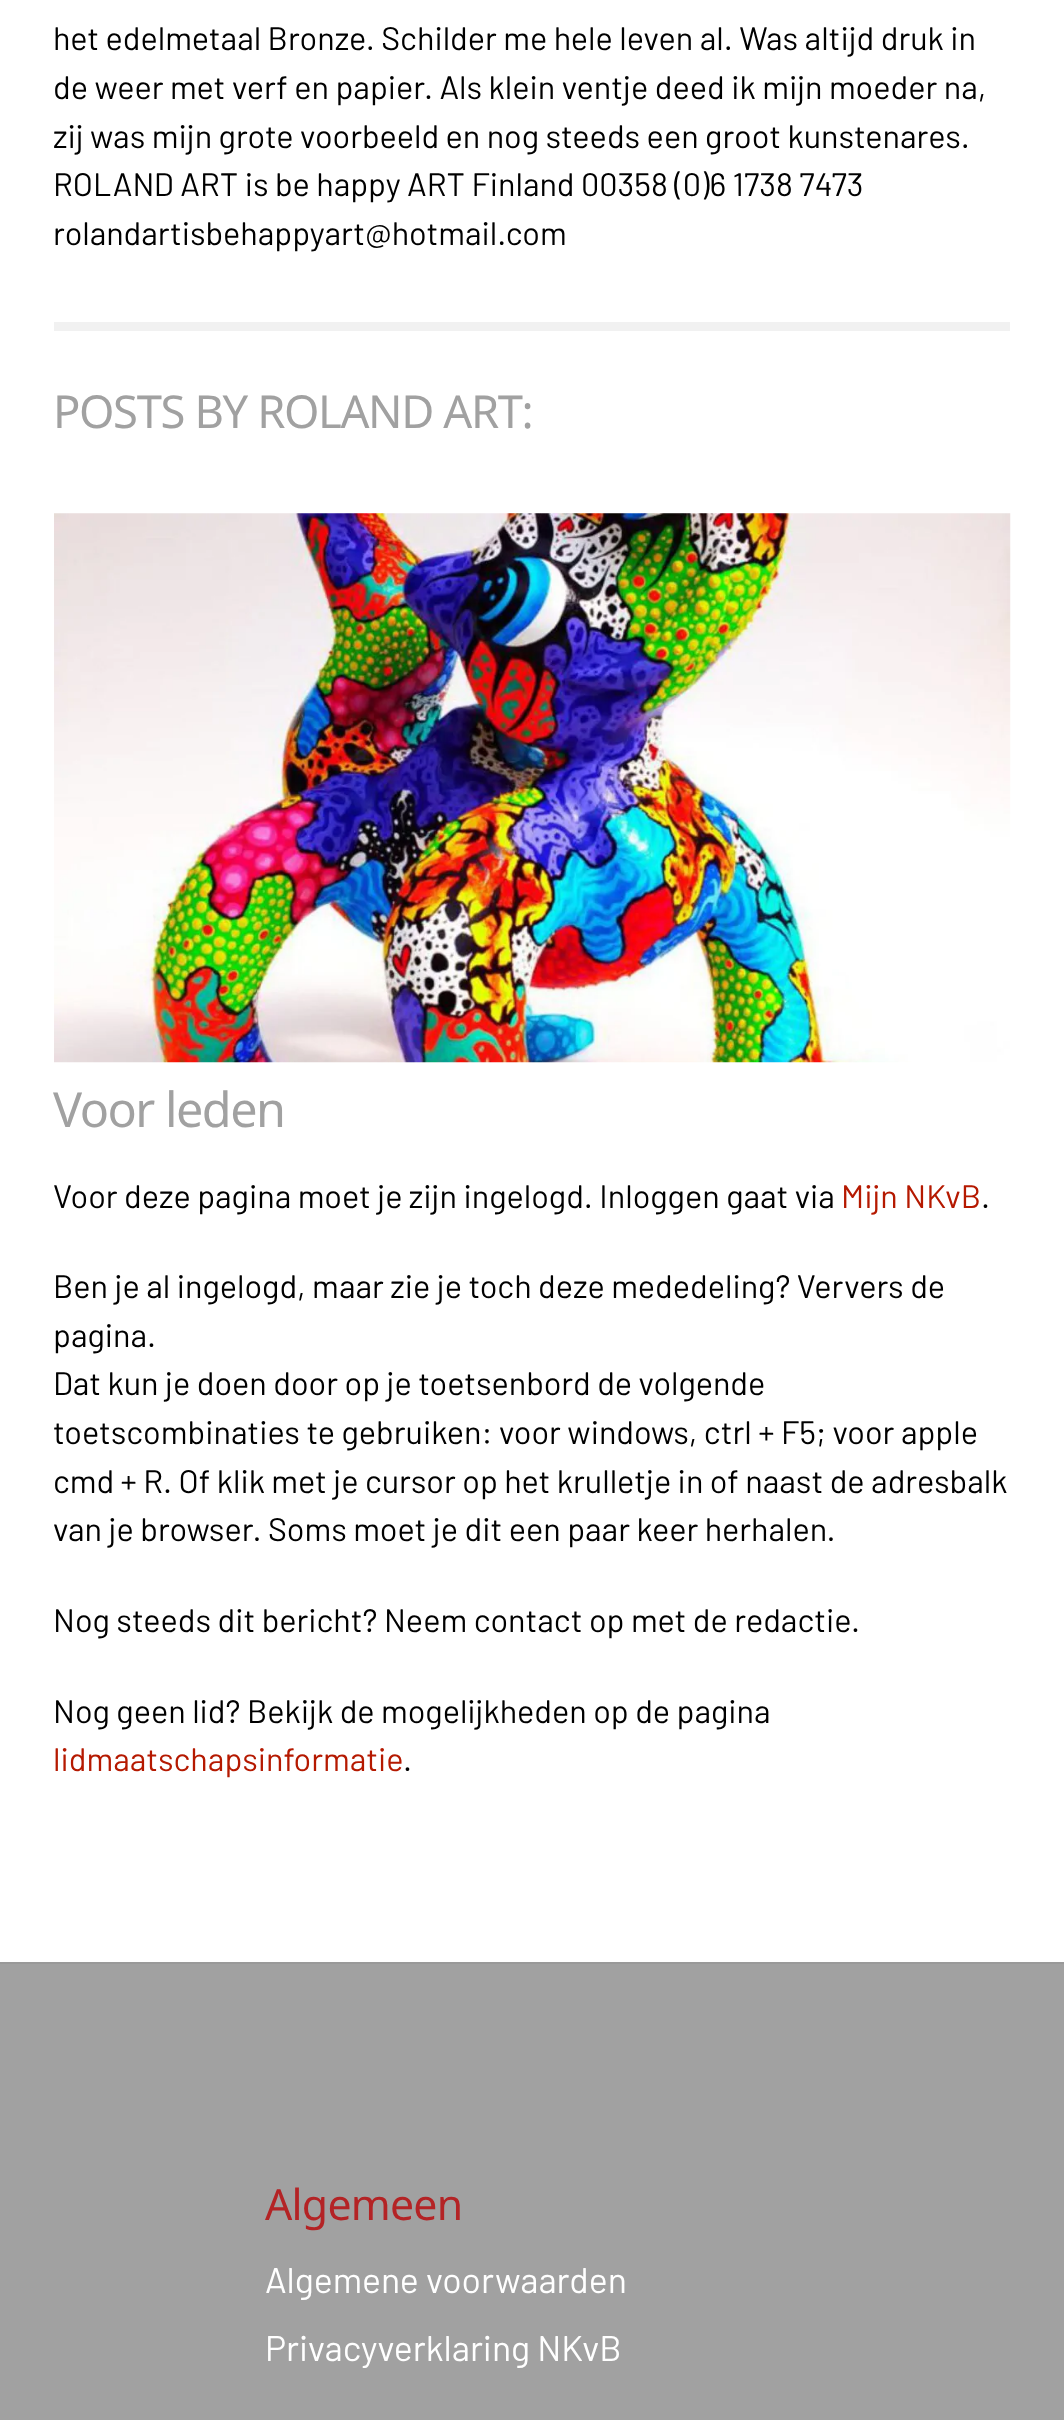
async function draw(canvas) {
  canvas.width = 1064
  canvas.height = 2420
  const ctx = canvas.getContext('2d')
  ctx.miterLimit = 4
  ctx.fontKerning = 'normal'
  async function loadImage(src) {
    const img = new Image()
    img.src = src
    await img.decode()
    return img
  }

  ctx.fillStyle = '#fff'
  ctx.fillRect(0, 0, 1064, 2420)
  ctx.font = '32.4px Barlow'
  ctx.fillStyle = '#000'
  ctx.fillText('het edelmetaal Bronze. Schilder me hele leven al. Was altijd druk in', 53, 50)
  ctx.fillText('de weer met verf en papier. Als klein ventje deed ik mijn moeder na,', 53, 99)
  ctx.fillText('zij was mijn grote voorbeeld en nog steeds een groot kunstenares.', 53, 148)
  ctx.fillText('ROLAND ART is be happy ART Finland 00358 (0)6 1738 7473', 53, 196)
  ctx.fillText('rolandartisbehappyart@hotmail.com', 53, 245)
  ctx.fillStyle = '#f1f1f1'
  ctx.fillRect(54, 322, 956, 9)
  ctx.letterSpacing = '-1.4px'
  ctx.font = '45.4px Noto Sans'
  ctx.fillStyle = '#a1a1a1'
  ctx.fillText('POSTS BY ROLAND ART:', 53, 428)
  ctx.drawImage(await loadImage('image0.png'), 54, 513, 957, 550)
  ctx.letterSpacing = '-1.5px'
  ctx.font = '48.5px Noto Sans'
  ctx.fillText('Voor leden', 53, 1127)
  ctx.letterSpacing = '0px'
  ctx.font = '32.4px Barlow'
  ctx.fillStyle = '#000'
  ctx.fillText('Voor deze pagina moet je zijn ingelogd. Inloggen gaat via', 53, 1208)
  ctx.fillStyle = '#b51900'
  ctx.fillText('Mijn NKvB', 841, 1208)
  ctx.fillStyle = '#000'
  ctx.fillText('.', 981, 1208)
  ctx.fillText('Ben je al ingelogd, maar zie je toch deze mededeling? Ververs de', 53, 1298)
  ctx.fillText('pagina.', 53, 1347)
  ctx.fillText('Dat kun je doen door op je toetsenbord de volgende', 53, 1395)
  ctx.fillText('toetscombinaties te gebruiken: voor windows, ctrl + F5; voor apple', 53, 1444)
  ctx.fillText('cmd + R. Of klik met je cursor op het krulletje in of naast de adresbalk', 53, 1493)
  ctx.fillText('van je browser. Soms moet je dit een paar keer herhalen.', 53, 1541)
  ctx.fillText('Nog steeds dit bericht? Neem contact op met de redactie.', 53, 1632)
  ctx.fillText('Nog geen lid? Bekijk de mogelijkheden op de pagina', 53, 1723)
  ctx.fillStyle = '#b51900'
  ctx.fillText('lidmaatschapsinformatie', 53, 1771)
  ctx.fillStyle = '#000'
  ctx.fillText('.', 403, 1771)
  ctx.fillStyle = '#a1a1a1'
  ctx.fillRect(0, 1964, 1064, 456)
  ctx.fillStyle = '#999'
  ctx.fillRect(0, 1962, 1064, 2)
  ctx.letterSpacing = '-0.75px'
  ctx.font = '42.75px Noto Sans'
  ctx.fillStyle = '#b42325'
  ctx.fillText('Algemeen', 265, 2220)
  ctx.letterSpacing = '0px'
  ctx.font = '35.6px Barlow'
  ctx.fillStyle = '#fff'
  ctx.fillText('Algemene voorwaarden', 265, 2293)
  ctx.fillText('Privacyverklaring NKvB', 265, 2361)
}

draw(document.querySelector('canvas'))
